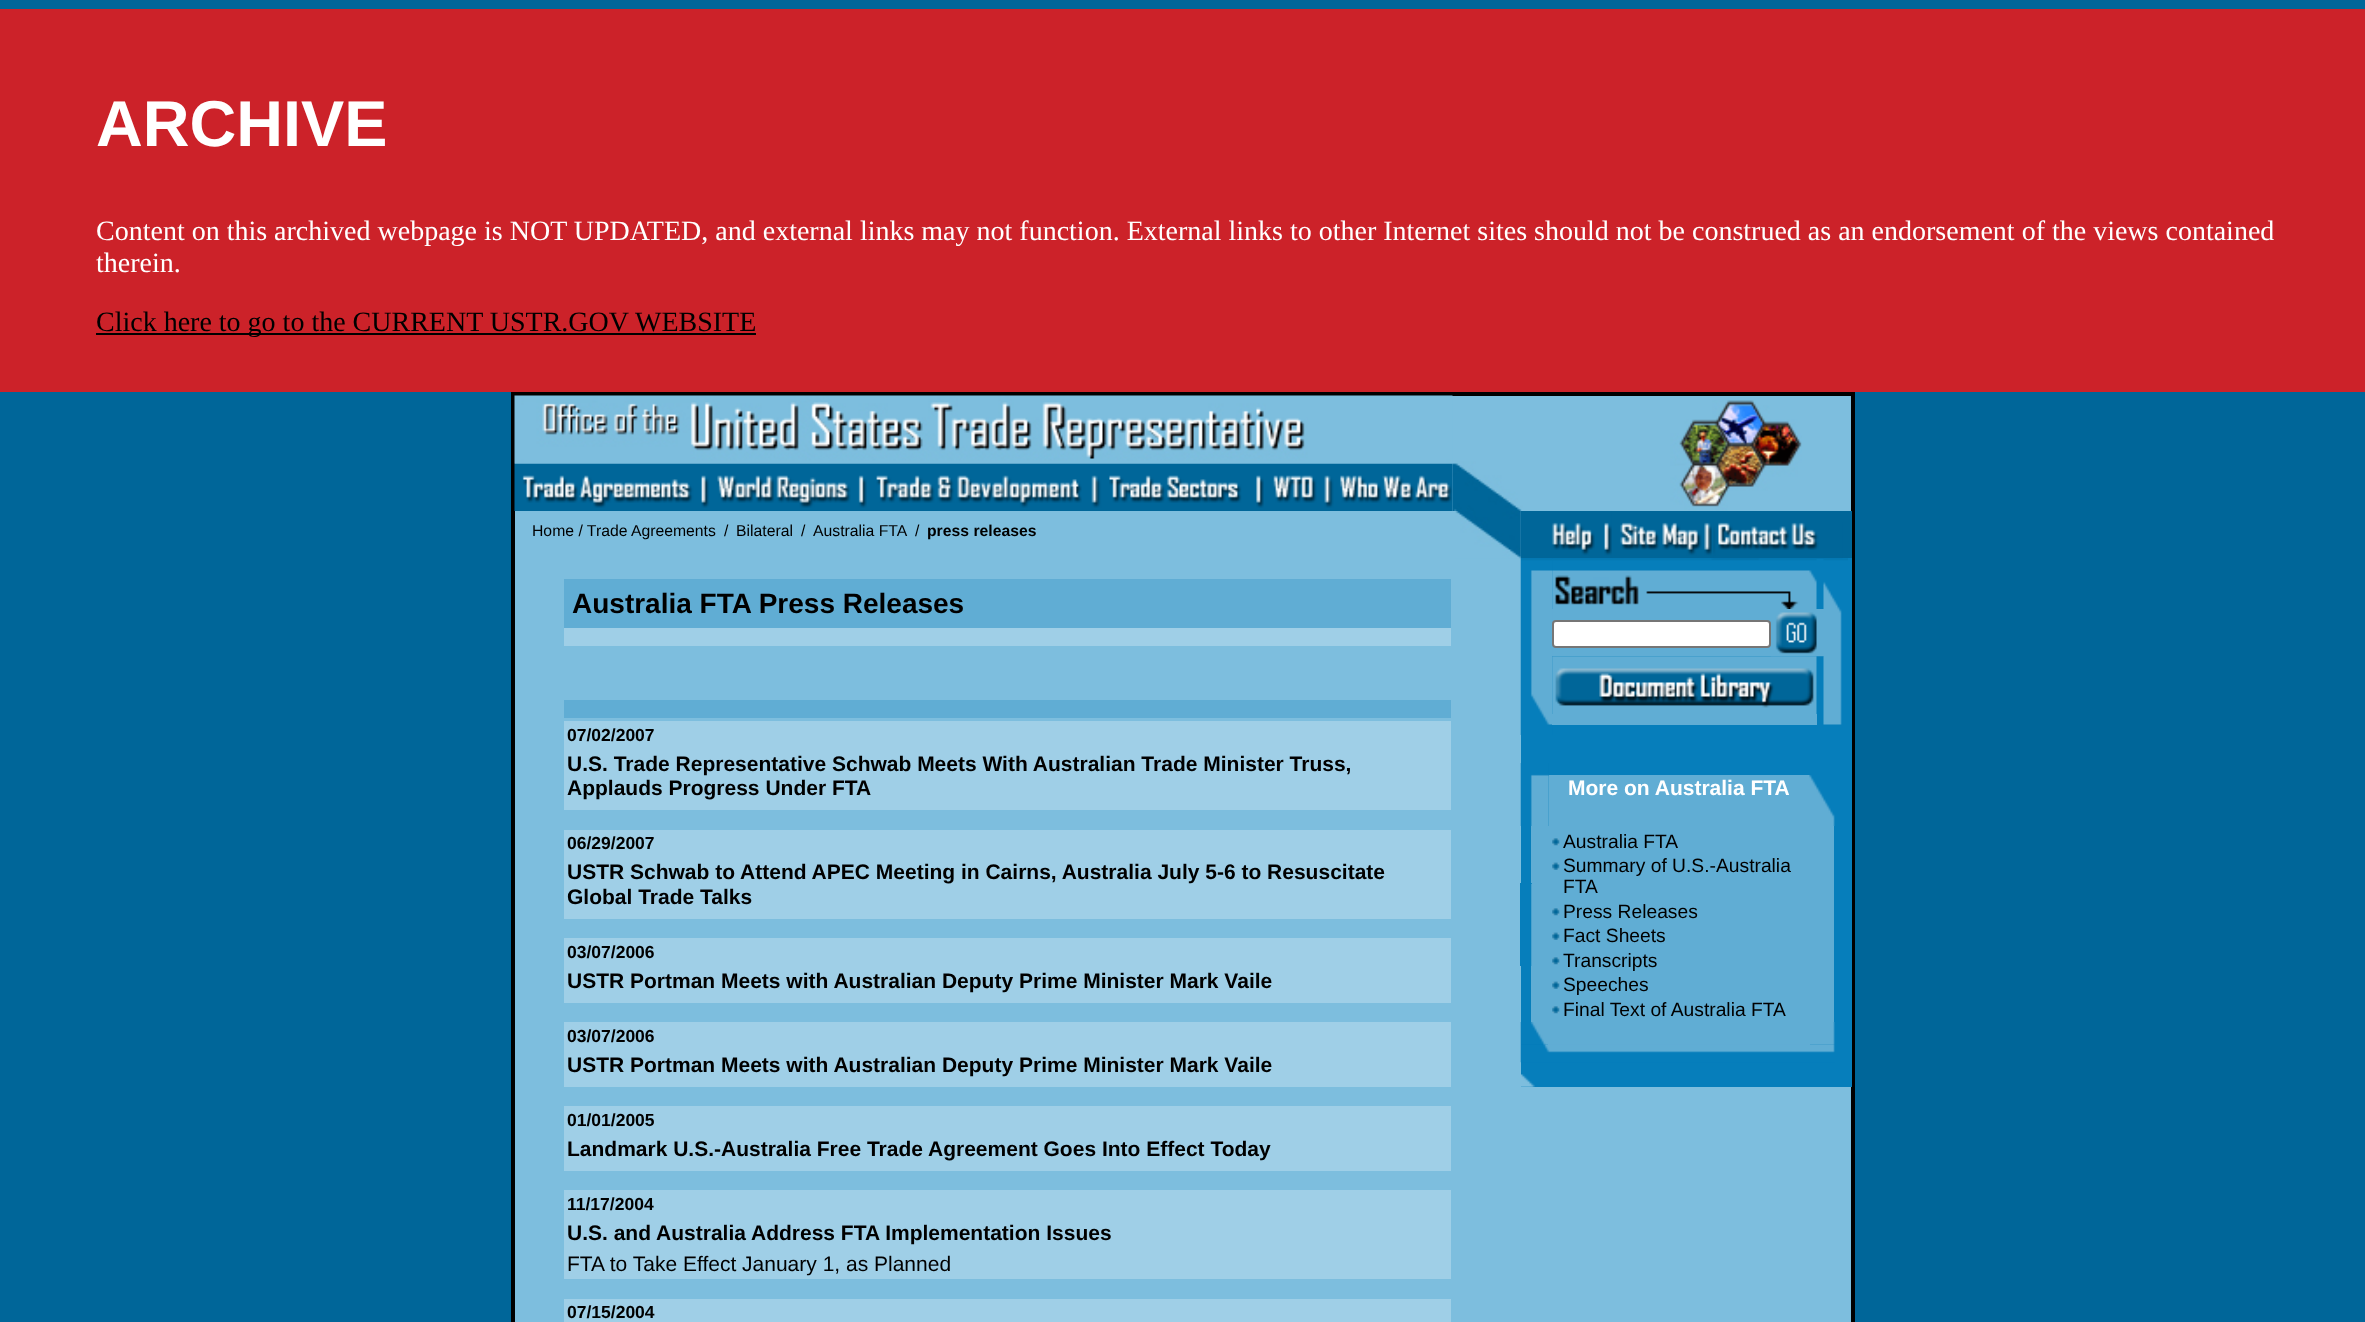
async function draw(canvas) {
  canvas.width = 2365
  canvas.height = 1322
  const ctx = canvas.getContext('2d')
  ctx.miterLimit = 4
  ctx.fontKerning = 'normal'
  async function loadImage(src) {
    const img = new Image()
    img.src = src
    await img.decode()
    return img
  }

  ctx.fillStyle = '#069'
  ctx.fillRect(0, 0, 2365, 1322)
  ctx.fillStyle = '#cc2229'
  ctx.fillRect(0, 9, 2365, 383)
  ctx.font = 'bold 64.75px Liberation Sans'
  ctx.fillStyle = '#fff'
  ctx.fillText('ARCHIVE', 96, 146)
  ctx.font = '28px Liberation Serif'
  ctx.fillText('Content on this archived webpage is NOT UPDATED, and external links may not function. External links to other Internet sites should not be construed as an endorsement of the views contained', 96, 240)
  ctx.fillText('therein.', 96, 272)
  ctx.fillStyle = '#000'
  ctx.fillRect(96, 333, 660, 2)
  ctx.fillText('Click here to go to the CURRENT USTR.GOV WEBSITE', 96, 331)
  ctx.fillStyle = '#7dbede'
  ctx.fillRect(515, 396, 1336, 926)
  ctx.strokeStyle = '#000'
  ctx.lineWidth = 2
  ctx.strokeRect(512, 393, 1342, 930)
  ctx.strokeRect(514, 395, 1338, 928)
  ctx.drawImage(await loadImage('image0.png'), 514, 395, 939, 69)
  ctx.drawImage(await loadImage('image1.png'), 514, 463, 939, 48)
  ctx.font = '15.75px Liberation Sans'
  ctx.fillStyle = '#000'
  ctx.fillText('Home / Trade Agreements', 532, 536)
  ctx.fillText('/', 724, 536)
  ctx.fillText('Bilateral', 736, 536)
  ctx.fillText('/', 801, 536)
  ctx.fillText('Australia FTA', 813, 536)
  ctx.fillText('/', 915, 536)
  ctx.font = 'bold 15.75px Liberation Sans'
  ctx.fillText('press releases', 927, 536)
  ctx.fillStyle = '#60add4'
  ctx.fillRect(564, 579, 887, 49)
  ctx.font = 'bold 28px Liberation Sans'
  ctx.fillStyle = '#000'
  ctx.fillText('Australia FTA Press Releases', 572, 613)
  ctx.fillStyle = '#9fcfe7'
  ctx.fillRect(564, 628, 887, 18)
  ctx.fillStyle = '#60add4'
  ctx.fillRect(564, 700, 887, 18)
  ctx.fillStyle = '#9fcfe7'
  ctx.fillRect(564, 721, 887, 89)
  ctx.font = 'bold 17.5px Liberation Sans'
  ctx.fillStyle = '#000'
  ctx.fillText('07/02/2007', 567, 741)
  ctx.font = 'bold 21px Liberation Sans'
  ctx.fillText('U.S. Trade Representative Schwab Meets With Australian Trade Minister Truss,', 567, 771)
  ctx.fillText('Applauds Progress Under FTA', 567, 795)
  ctx.fillStyle = '#9fcfe7'
  ctx.fillRect(564, 830, 887, 89)
  ctx.font = 'bold 17.5px Liberation Sans'
  ctx.fillStyle = '#000'
  ctx.fillText('06/29/2007', 567, 849)
  ctx.font = 'bold 21px Liberation Sans'
  ctx.fillText('USTR Schwab to Attend APEC Meeting in Cairns, Australia July 5-6 to Resuscitate', 567, 879)
  ctx.fillText('Global Trade Talks', 567, 904)
  ctx.fillStyle = '#9fcfe7'
  ctx.fillRect(564, 938, 887, 65)
  ctx.font = 'bold 17.5px Liberation Sans'
  ctx.fillStyle = '#000'
  ctx.fillText('03/07/2006', 567, 958)
  ctx.font = 'bold 21px Liberation Sans'
  ctx.fillText('USTR Portman Meets with Australian Deputy Prime Minister Mark Vaile', 567, 988)
  ctx.fillStyle = '#9fcfe7'
  ctx.fillRect(564, 1022, 887, 65)
  ctx.font = 'bold 17.5px Liberation Sans'
  ctx.fillStyle = '#000'
  ctx.fillText('03/07/2006', 567, 1042)
  ctx.font = 'bold 21px Liberation Sans'
  ctx.fillText('USTR Portman Meets with Australian Deputy Prime Minister Mark Vaile', 567, 1072)
  ctx.fillStyle = '#9fcfe7'
  ctx.fillRect(564, 1106, 887, 65)
  ctx.font = 'bold 17.5px Liberation Sans'
  ctx.fillStyle = '#000'
  ctx.fillText('01/01/2005', 567, 1126)
  ctx.font = 'bold 21px Liberation Sans'
  ctx.fillText('Landmark U.S.-Australia Free Trade Agreement Goes Into Effect Today', 567, 1156)
  ctx.fillStyle = '#9fcfe7'
  ctx.fillRect(564, 1190, 887, 89)
  ctx.font = 'bold 17.5px Liberation Sans'
  ctx.fillStyle = '#000'
  ctx.fillText('11/17/2004', 567, 1210)
  ctx.font = 'bold 21px Liberation Sans'
  ctx.fillText('U.S. and Australia Address FTA Implementation Issues', 567, 1240)
  ctx.font = '21px Liberation Sans'
  ctx.fillText('FTA to Take Effect January 1, as Planned', 567, 1271)
  ctx.fillStyle = '#9fcfe7'
  ctx.fillRect(564, 1299, 887, 23)
  ctx.font = 'bold 17.5px Liberation Sans'
  ctx.fillStyle = '#000'
  ctx.fillText('07/15/2004', 567, 1318)
  ctx.drawImage(await loadImage('image2.png'), 1452, 400, 350, 111)
  ctx.drawImage(await loadImage('image3.png'), 1455, 511, 66, 48)
  ctx.fillStyle = '#069'
  ctx.fillRect(1611, 511, 241, 47)
  ctx.fillStyle = '#067ebb'
  ctx.fillRect(1521, 558, 331, 177)
  ctx.drawImage(await loadImage('image4.png'), 1520, 511, 92, 48)
  ctx.drawImage(await loadImage('image5.png'), 1612, 522, 100, 37)
  ctx.drawImage(await loadImage('image6.png'), 1713, 522, 130, 37)
  ctx.fillStyle = '#60add4'
  ctx.fillRect(1552, 609, 272, 47)
  ctx.drawImage(await loadImage('image7.png'), 1520, 558, 33, 177)
  ctx.drawImage(await loadImage('image8.png'), 1552, 558, 265, 51)
  ctx.drawImage(await loadImage('image9.png'), 1823, 558, 25, 167)
  ctx.fillStyle = '#fff'
  ctx.beginPath()
  ctx.roundRect(1553, 621, 217, 26, 3)
  ctx.fill()
  ctx.strokeStyle = '#767676'
  ctx.stroke()
  ctx.drawImage(await loadImage('image10.png'), 1771, 612, 53, 45)
  ctx.drawImage(await loadImage('image11.png'), 1552, 656, 265, 58)
  ctx.fillStyle = '#60add4'
  ctx.fillRect(1552, 714, 265, 11)
  ctx.fillStyle = '#067ebb'
  ctx.fillRect(1521, 735, 331, 4)
  ctx.fillRect(1521, 739, 331, 12)
  ctx.fillRect(1521, 751, 331, 12)
  ctx.fillRect(1521, 763, 331, 299)
  ctx.drawImage(await loadImage('image12.png'), 1520, 763, 29, 63)
  ctx.fillStyle = '#60add4'
  ctx.fillRect(1549, 775, 261, 51)
  ctx.font = 'bold 21px Liberation Sans'
  ctx.fillStyle = '#fff'
  ctx.fillText('More on Australia FTA', 1568, 795)
  ctx.drawImage(await loadImage('image13.png'), 1809, 775, 26, 51)
  ctx.fillStyle = '#60add4'
  ctx.fillRect(1531, 826, 303, 196)
  ctx.fillStyle = '#067ebb'
  ctx.fillRect(1520, 883, 12, 83)
  ctx.drawImage(await loadImage('image14.png'), 1531, 883, 1, 83)
  ctx.drawImage(await loadImage('image15.png'), 1552, 838, 8, 8)
  ctx.font = '19.25px Liberation Sans'
  ctx.fillStyle = '#000'
  ctx.fillText('Australia FTA', 1563, 848)
  ctx.drawImage(await loadImage('image16.png'), 1552, 862, 8, 8)
  ctx.fillText('Summary of U.S.-Australia', 1563, 872)
  ctx.fillText('FTA', 1563, 893)
  ctx.drawImage(await loadImage('image15.png'), 1552, 908, 8, 8)
  ctx.fillText('Press Releases', 1563, 918)
  ctx.drawImage(await loadImage('image16.png'), 1552, 932, 8, 8)
  ctx.fillText('Fact Sheets', 1563, 942)
  ctx.drawImage(await loadImage('image15.png'), 1552, 957, 8, 8)
  ctx.fillText('Transcripts', 1563, 967)
  ctx.drawImage(await loadImage('image16.png'), 1552, 981, 8, 8)
  ctx.fillText('Speeches', 1563, 991)
  ctx.drawImage(await loadImage('image15.png'), 1552, 1006, 8, 8)
  ctx.fillText('Final Text of Australia FTA', 1563, 1016)
  ctx.drawImage(await loadImage('image17.png'), 1520, 1022, 28, 23)
  ctx.fillStyle = '#60add4'
  ctx.fillRect(1548, 1022, 262, 23)
  ctx.drawImage(await loadImage('image18.png'), 1810, 1022, 25, 23)
  ctx.fillStyle = '#067ebb'
  ctx.fillRect(1521, 1062, 331, 13)
  ctx.drawImage(await loadImage('image19.png'), 1520, 1044, 315, 19)
  ctx.fillRect(1521, 1075, 331, 12)
  ctx.drawImage(await loadImage('image20.png'), 1521, 1074, 14, 13)
}

draw(document.querySelector('canvas'))
